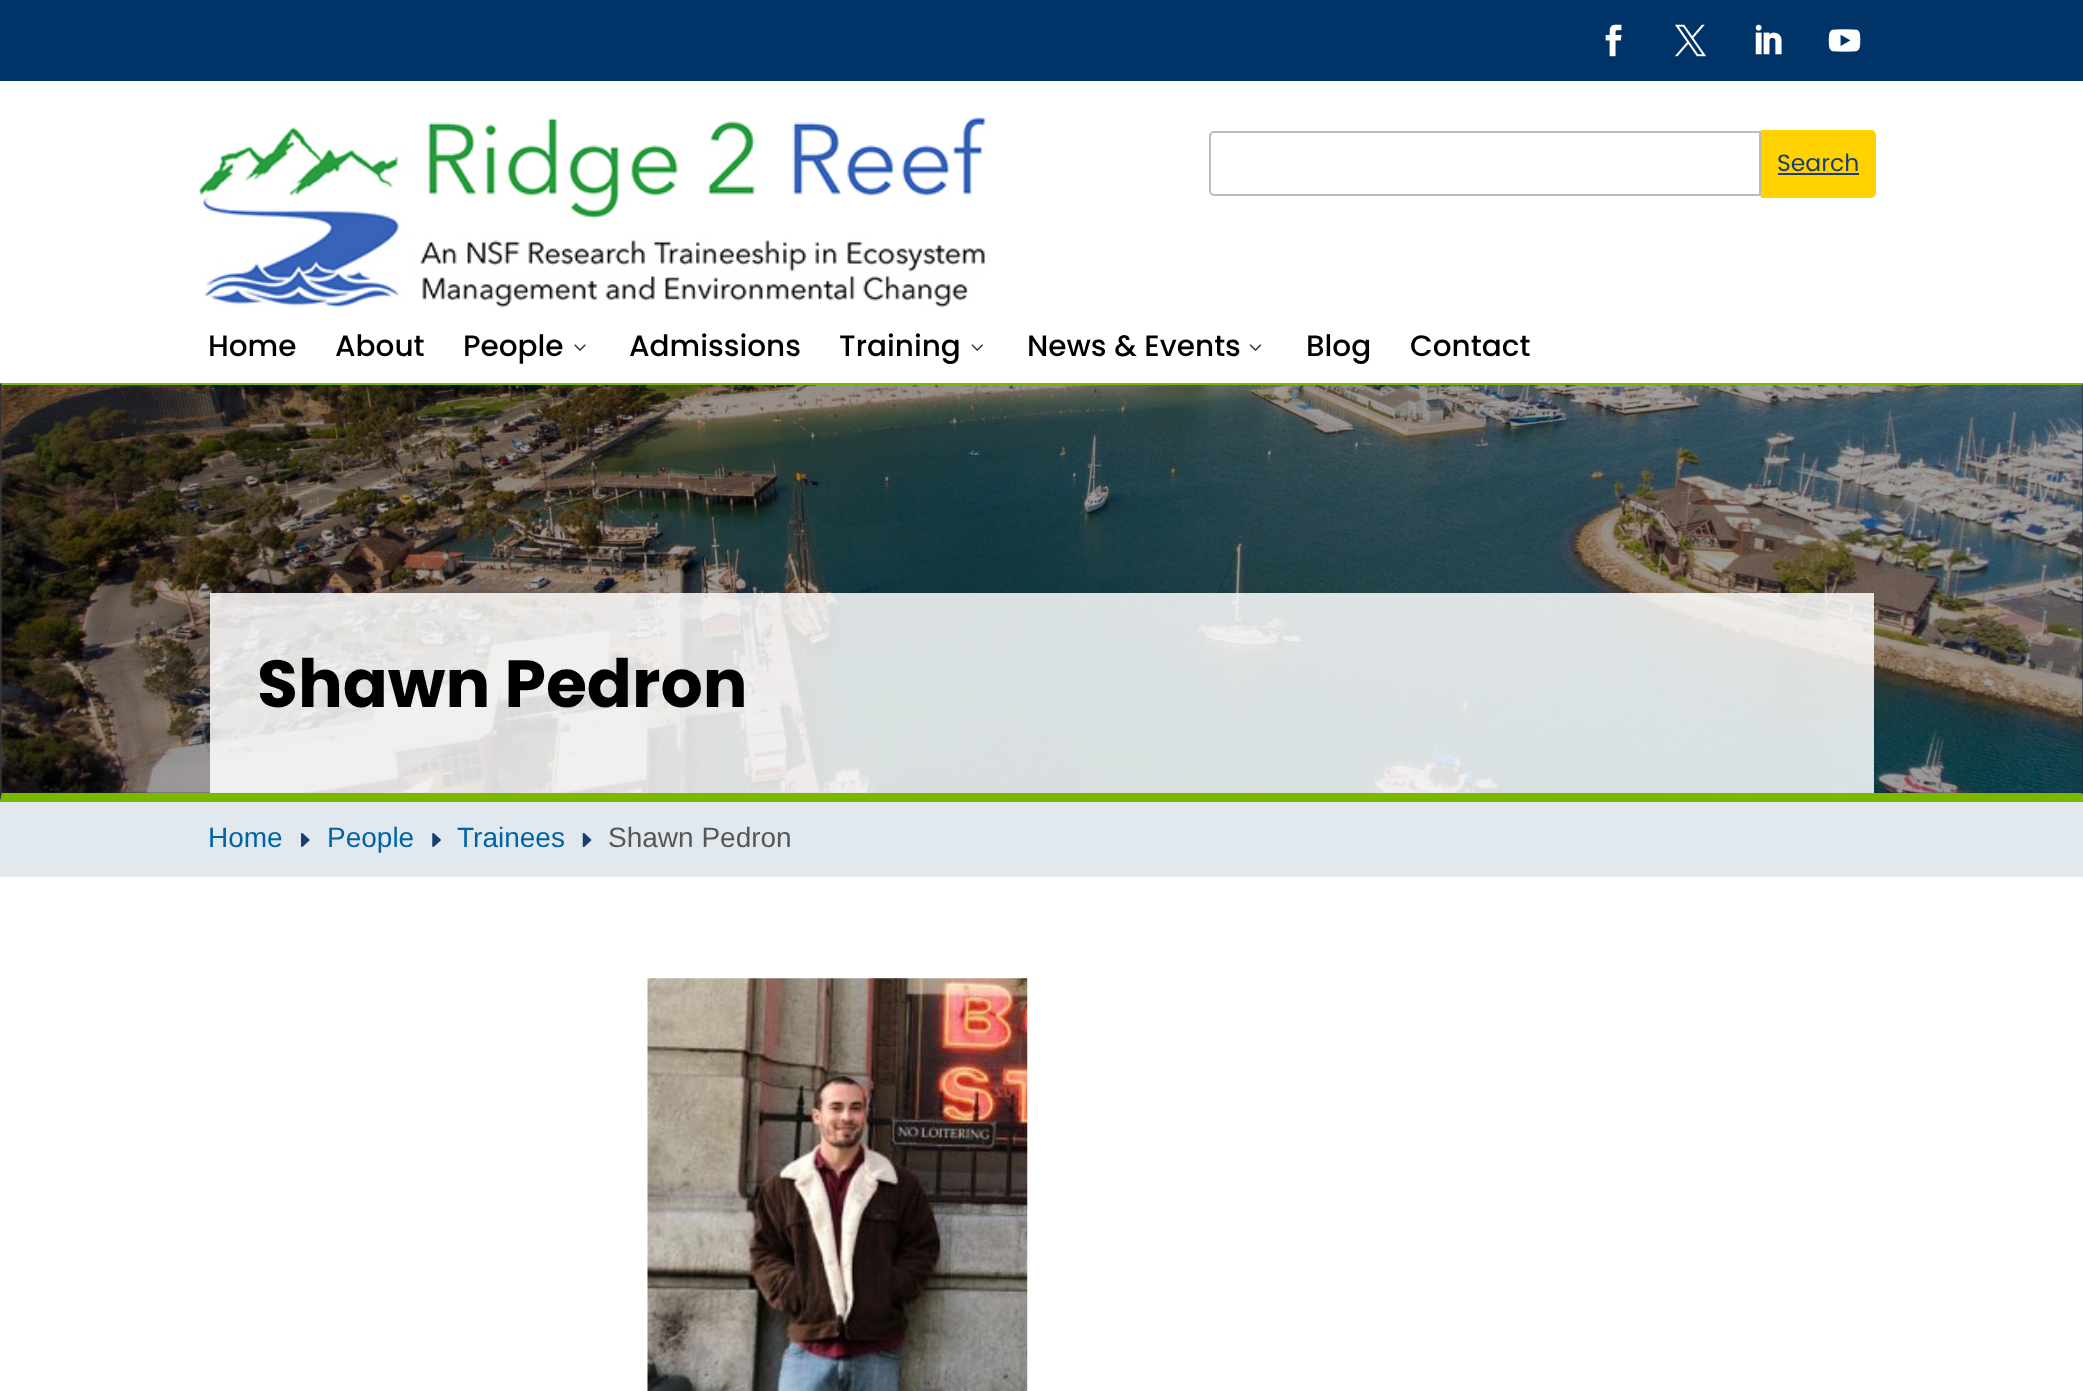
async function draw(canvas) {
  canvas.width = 2083
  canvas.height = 1391
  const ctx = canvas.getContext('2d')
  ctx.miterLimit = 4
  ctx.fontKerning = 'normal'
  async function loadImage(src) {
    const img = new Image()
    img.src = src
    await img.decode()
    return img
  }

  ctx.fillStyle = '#fff'
  ctx.fillRect(0, 0, 2083, 1391)
  ctx.fillStyle = '#003468'
  ctx.fillRect(0, 0, 2083, 81)
  ctx.drawImage(await loadImage('image0.png'), 1605, 24, 17, 33)
  ctx.drawImage(await loadImage('image1.png'), 1675, 24, 31, 33)
  ctx.drawImage(await loadImage('image2.png'), 1755, 24, 27, 31)
  ctx.drawImage(await loadImage('image3.png'), 1828, 29, 33, 23)
  ctx.drawImage(await loadImage('image4.png'), 198, 117, 789, 191)
  ctx.beginPath()
  ctx.roundRect(1210, 132, 550, 63, [4, 0, 0, 4])
  ctx.strokeStyle = '#bbb'
  ctx.lineWidth = 2
  ctx.stroke()
  ctx.fillStyle = '#ffd200'
  ctx.beginPath()
  ctx.roundRect(1761, 130, 115, 68, [0, 5, 5, 0])
  ctx.fill()
  ctx.font = '23.5px Poppins'
  ctx.fillStyle = '#1b3d6d'
  ctx.fillText('Search', 1777, 171)
  ctx.fillRect(1778, 173, 81, 2)
  ctx.font = '500 29.5px Poppins'
  ctx.fillStyle = '#000'
  ctx.fillText('Home', 208, 356)
  ctx.fillText('About', 335, 356)
  ctx.fillText('People', 463, 356)
  ctx.drawImage(await loadImage('image5.png'), 574, 344, 12, 7)
  ctx.fillText('Admissions', 629, 356)
  ctx.fillText('Training', 839, 356)
  ctx.drawImage(await loadImage('image6.png'), 971, 344, 12, 7)
  ctx.fillText('News & Events', 1027, 356)
  ctx.drawImage(await loadImage('image7.png'), 1249, 344, 13, 7)
  ctx.fillText('Blog', 1306, 356)
  ctx.fillText('Contact', 1410, 356)
  ctx.fillStyle = '#7ab800'
  ctx.fillRect(0, 383, 2083, 2)
  ctx.fillStyle = '#333'
  ctx.beginPath()
  ctx.moveTo(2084, 383)
  ctx.lineTo(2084, 802)
  ctx.lineTo(2082, 793)
  ctx.lineTo(2082, 385)
  ctx.closePath()
  ctx.fill()
  ctx.fillStyle = '#7ab800'
  ctx.beginPath()
  ctx.moveTo(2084, 802)
  ctx.lineTo(0, 802)
  ctx.lineTo(2, 793)
  ctx.lineTo(2082, 793)
  ctx.closePath()
  ctx.fill()
  ctx.fillStyle = '#333'
  ctx.beginPath()
  ctx.moveTo(0, 802)
  ctx.lineTo(0, 383)
  ctx.lineTo(2, 385)
  ctx.lineTo(2, 793)
  ctx.closePath()
  ctx.fill()
  ctx.fillStyle = '#1b3d6d'
  ctx.fillRect(2, 385, 2081, 408)
  ctx.drawImage(await loadImage('image8.png'), 1, 385, 2082, 408)
  ctx.save()
  ctx.beginPath()
  ctx.rect(2, 385, 2081, 408)
  ctx.clip()
  ctx.fillStyle = '#00000061'
  ctx.beginPath()
  ctx.moveTo(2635, 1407)
  ctx.lineTo(-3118, 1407)
  ctx.lineTo(-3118, -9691)
  ctx.lineTo(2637, -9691)
  ctx.lineTo(897, -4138)
  ctx.closePath()
  ctx.fill()
  ctx.restore()
  ctx.fillStyle = '#ffffffd9'
  ctx.fillRect(210, 593, 1664, 200)
  ctx.font = 'bold 66.5px Poppins'
  ctx.fillStyle = '#000'
  ctx.fillText('Shawn Pedron', 257, 707)
  ctx.fillStyle = '#e1e8ee'
  ctx.fillRect(0, 802, 2083, 75)
  ctx.font = '28px Liberation Sans'
  ctx.fillStyle = '#0064a4'
  ctx.fillText('Home', 208, 847)
  ctx.drawImage(await loadImage('image9.png'), 301, 833, 9, 14)
  ctx.fillText('People', 327, 847)
  ctx.drawImage(await loadImage('image10.png'), 432, 833, 9, 14)
  ctx.fillText('Trainees', 457, 847)
  ctx.drawImage(await loadImage('image11.png'), 582, 833, 10, 14)
  ctx.fillStyle = '#555759'
  ctx.fillText('Shawn Pedron', 608, 847)
  ctx.drawImage(await loadImage('image12.png'), 647, 978, 381, 413)
}

draw(document.querySelector('canvas'))
